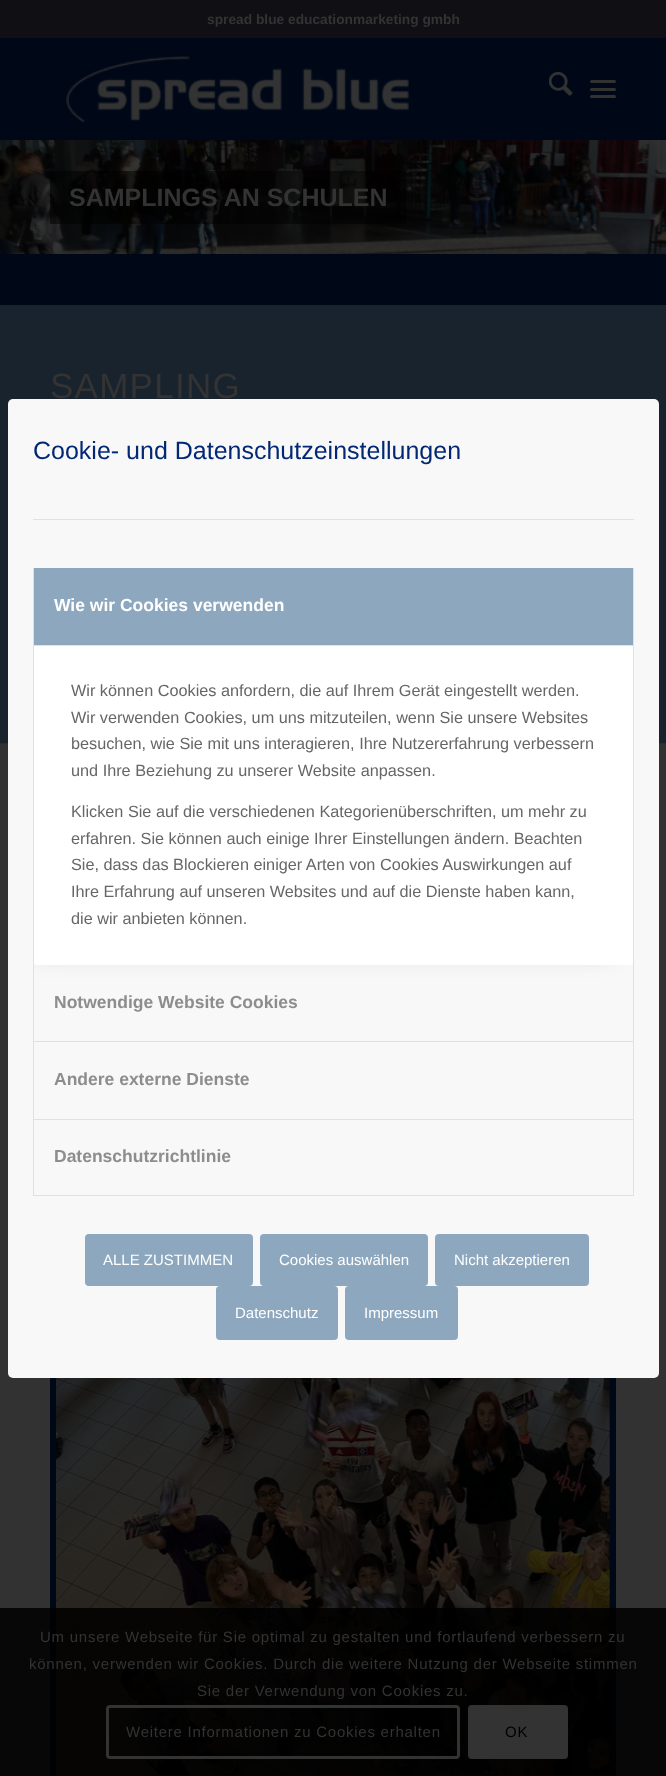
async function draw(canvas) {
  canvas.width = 666
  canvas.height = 1776
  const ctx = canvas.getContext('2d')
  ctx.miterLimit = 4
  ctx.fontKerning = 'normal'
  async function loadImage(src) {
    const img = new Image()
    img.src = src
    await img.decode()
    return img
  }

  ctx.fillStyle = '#000817'
  ctx.fillRect(0, 0, 666, 1776)
  ctx.fillStyle = '#101014'
  ctx.fillRect(0, 0, 666, 38)
  ctx.font = 'bold 13.75px Liberation Sans'
  ctx.fillStyle = '#333'
  ctx.fillText('spread blue educationmarketing gmbh', 207, 24)
  ctx.drawImage(await loadImage('image0.png'), 66, 56, 343, 67)
  ctx.drawImage(await loadImage('image1.png'), 549, 71, 24, 25)
  ctx.fillStyle = '#323232'
  ctx.beginPath()
  ctx.roundRect(590, 88, 26, 3, 1.5)
  ctx.fill()
  ctx.beginPath()
  ctx.roundRect(590, 80, 26, 3, 1.5)
  ctx.fill()
  ctx.beginPath()
  ctx.roundRect(590, 95, 26, 3, 1.5)
  ctx.fill()
  ctx.drawImage(await loadImage('image2.png'), 0, 140, 666, 114)
  ctx.fillStyle = '#00000080'
  ctx.fillRect(50, 171, 356, 53)
  ctx.font = 'bold 25px Liberation Sans'
  ctx.fillStyle = '#333'
  ctx.fillText('SAMPLINGS AN SCHULEN', 69, 206)
  ctx.fillStyle = '#19232e'
  ctx.fillRect(0, 305, 666, 438)
  ctx.letterSpacing = '1.25px'
  ctx.font = '35px Liberation Sans'
  ctx.fillStyle = '#333'
  ctx.fillText('SAMPLING', 50, 398)
  ctx.fillStyle = '#323232'
  ctx.fillRect(0, 744, 666, 1032)
  ctx.fillStyle = '#2d2d2d'
  ctx.fillRect(0, 743, 666, 1)
  ctx.fillStyle = '#000817'
  ctx.fillRect(50, 1378, 566, 398)
  ctx.drawImage(await loadImage('image3.png'), 56, 1378, 554, 398)
  ctx.fillStyle = '#f8f8f8'
  ctx.beginPath()
  ctx.roundRect(8, 399, 651, 979, 5)
  ctx.fill()
  ctx.letterSpacing = '0px'
  ctx.font = '25px Liberation Sans'
  ctx.fillStyle = '#022875'
  ctx.fillText('Cookie- und Datenschutzeinstellungen', 33, 459)
  ctx.fillStyle = '#e1e1e1'
  ctx.fillRect(33, 519, 601, 1)
  ctx.fillRect(633, 568, 1, 628)
  ctx.fillRect(33, 1195, 601, 1)
  ctx.fillRect(33, 568, 1, 628)
  ctx.save()
  ctx.beginPath()
  ctx.rect(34, 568, 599, 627)
  ctx.clip()
  ctx.fillStyle = '#00000033'
  ctx.filter = 'blur(12.5px)'
  ctx.beginPath()
  ctx.rect(36, 658, 574, 295)
  ctx.fill()
  ctx.filter = 'none'
  ctx.restore()
  ctx.fillStyle = '#8ca7be'
  ctx.fillRect(34, 568, 599, 77)
  ctx.fillStyle = '#fff'
  ctx.beginPath()
  ctx.roundRect(34, 645, 599, 320, 2.5)
  ctx.fill()
  ctx.fillStyle = '#e1e1e1'
  ctx.fillRect(34, 645, 599, 1)
  ctx.font = 'bold 17.5px Liberation Sans'
  ctx.fillStyle = '#fff'
  ctx.fillText('Wie wir Cookies verwenden', 54, 611)
  ctx.font = '16.25px Liberation Sans'
  ctx.fillStyle = '#666'
  ctx.fillText('Wir können Cookies anfordern, die auf Ihrem Gerät eingestellt werden.', 71, 696)
  ctx.fillText('Wir verwenden Cookies, um uns mitzuteilen, wenn Sie unsere Websites', 71, 723)
  ctx.fillText('besuchen, wie Sie mit uns interagieren, Ihre Nutzererfahrung verbessern', 71, 749)
  ctx.fillText('und Ihre Beziehung zu unserer Website anpassen.', 71, 776)
  ctx.fillText('Klicken Sie auf die verschiedenen Kategorienüberschriften, um mehr zu', 71, 817)
  ctx.fillText('erfahren. Sie können auch einige Ihrer Einstellungen ändern. Beachten', 71, 844)
  ctx.fillText('Sie, dass das Blockieren einiger Arten von Cookies Auswirkungen auf', 71, 870)
  ctx.fillText('Ihre Erfahrung auf unseren Websites und auf die Dienste haben kann,', 71, 897)
  ctx.fillText('die wir anbieten können.', 71, 924)
  ctx.fillStyle = '#e1e1e1'
  ctx.fillRect(34, 1041, 599, 1)
  ctx.font = 'bold 17.5px Liberation Sans'
  ctx.fillStyle = '#8d8d8d'
  ctx.fillText('Notwendige Website Cookies', 54, 1008)
  ctx.fillStyle = '#e1e1e1'
  ctx.fillRect(34, 1119, 599, 1)
  ctx.fillStyle = '#8d8d8d'
  ctx.fillText('Andere externe Dienste', 54, 1085)
  ctx.fillText('Datenschutzrichtlinie', 54, 1162)
  ctx.fillStyle = '#8ca7be'
  ctx.beginPath()
  ctx.roundRect(86.5, 1235.5, 165, 49, 2.5)
  ctx.fill()
  ctx.strokeStyle = '#8ca7be'
  ctx.lineWidth = 3
  ctx.stroke()
  ctx.font = '15px Liberation Sans'
  ctx.fillStyle = '#fff'
  ctx.fillText('ALLE ZUSTIMMEN', 103, 1265)
  ctx.fillStyle = '#8ca7be'
  ctx.beginPath()
  ctx.roundRect(261.5, 1235.5, 165, 49, 2.5)
  ctx.fill()
  ctx.stroke()
  ctx.fillStyle = '#fff'
  ctx.fillText('Cookies auswählen', 279, 1265)
  ctx.fillStyle = '#8ca7be'
  ctx.beginPath()
  ctx.roundRect(436.5, 1235.5, 151, 49, 2.5)
  ctx.fill()
  ctx.stroke()
  ctx.fillStyle = '#fff'
  ctx.fillText('Nicht akzeptieren', 454, 1265)
  ctx.fillStyle = '#8ca7be'
  ctx.beginPath()
  ctx.roundRect(217.5, 1287.5, 119, 51, 2.5)
  ctx.fill()
  ctx.stroke()
  ctx.fillStyle = '#fff'
  ctx.fillText('Datenschutz', 235, 1318)
  ctx.fillStyle = '#8ca7be'
  ctx.beginPath()
  ctx.roundRect(346.5, 1287.5, 110, 51, 2.5)
  ctx.fill()
  ctx.stroke()
  ctx.fillStyle = '#fff'
  ctx.fillText('Impressum', 364, 1318)
  ctx.fillStyle = '#000000d9'
  ctx.fillRect(0, 1608, 666, 168)
  ctx.letterSpacing = '0.75px'
  ctx.fillStyle = '#333'
  ctx.fillText('Um unsere Webseite für Sie optimal zu gestalten und fortlaufend verbessern zu', 40, 1642)
  ctx.fillText('können, verwenden wir Cookies. Durch die weitere Nutzung der Webseite stimmen', 29, 1669)
  ctx.fillText('Sie der Verwendung von Cookies zu.', 197, 1696)
  ctx.beginPath()
  ctx.roundRect(107.5, 1706.5, 351, 51, 2.5)
  ctx.strokeStyle = '#333'
  ctx.stroke()
  ctx.fillText('Weitere Informationen zu Cookies erhalten', 126, 1737)
  ctx.beginPath()
  ctx.roundRect(468, 1705, 100, 54, 4)
  ctx.fill()
  ctx.fillStyle = '#000'
  ctx.fillText('OK', 505, 1737)
}

draw(document.querySelector('canvas'))
